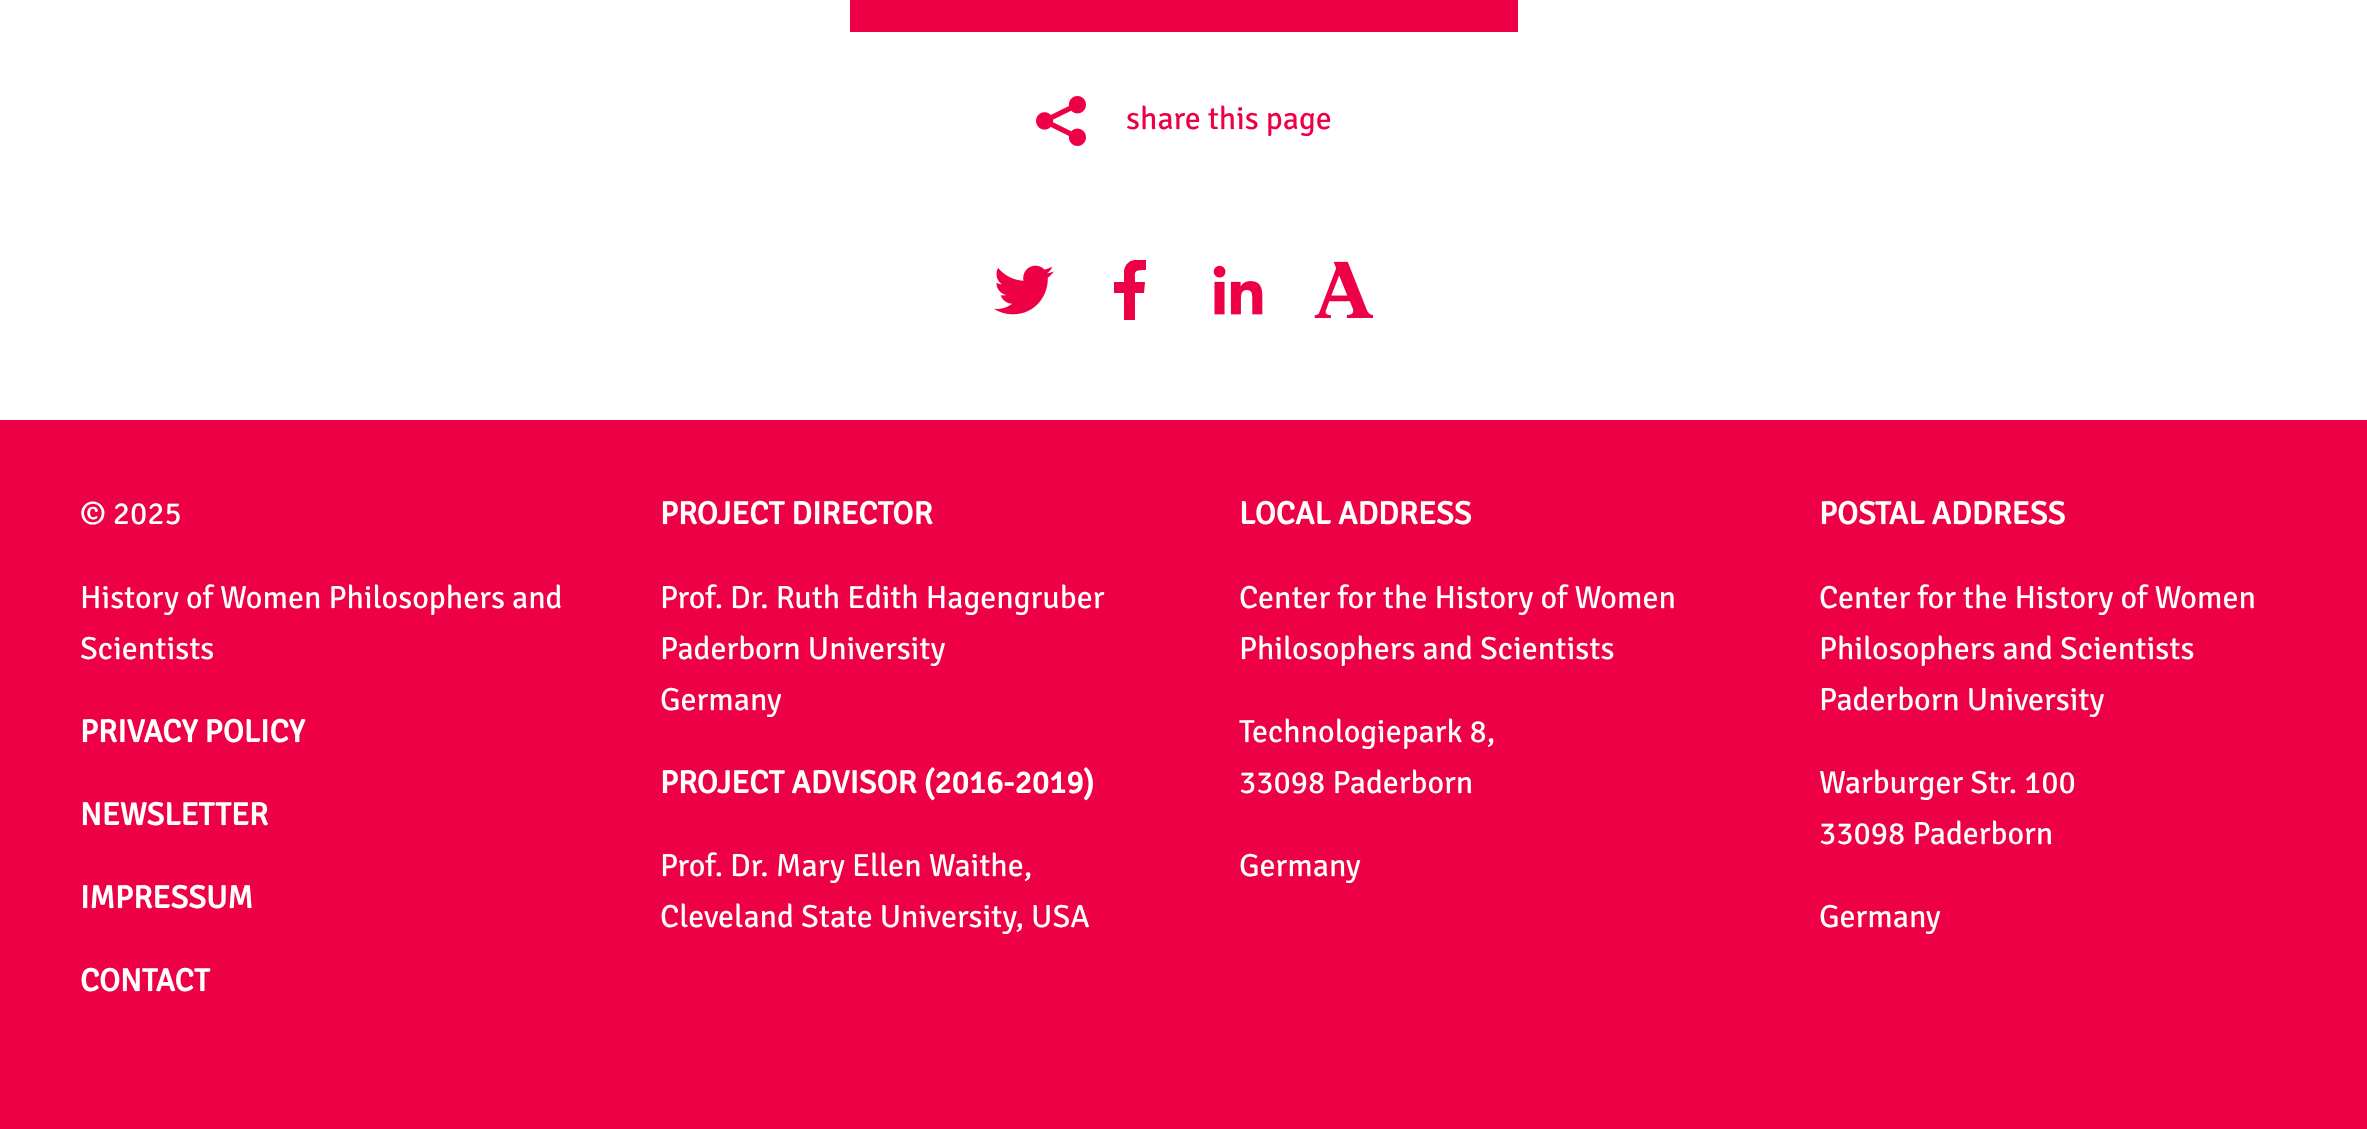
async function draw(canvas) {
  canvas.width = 2367
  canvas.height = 1129
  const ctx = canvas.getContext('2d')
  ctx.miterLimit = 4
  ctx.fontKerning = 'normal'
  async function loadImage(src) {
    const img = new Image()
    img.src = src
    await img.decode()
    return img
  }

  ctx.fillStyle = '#fff'
  ctx.fillRect(0, 0, 2367, 1129)
  ctx.fillStyle = '#ed0045'
  ctx.fillRect(850, 0, 668, 32)
  ctx.drawImage(await loadImage('image0.png'), 1036, 96, 50, 50)
  ctx.font = '300 32px Signika Negative'
  ctx.fillText('share this page', 1126, 129)
  ctx.drawImage(await loadImage('image1.png'), 994, 265, 60, 50)
  ctx.save()
  ctx.beginPath()
  ctx.rect(1100, 260, 60, 60)
  ctx.clip()
  ctx.beginPath()
  ctx.moveTo(1135, 320)
  ctx.lineTo(1135, 293)
  ctx.lineTo(1144, 293)
  ctx.lineTo(1145, 282)
  ctx.lineTo(1135, 282)
  ctx.bezierCurveTo(1135, 271, 1133, 270, 1146, 270)
  ctx.lineTo(1146, 260)
  ctx.bezierCurveTo(1136, 259, 1126, 259, 1124, 271)
  ctx.lineTo(1124, 282)
  ctx.lineTo(1114, 282)
  ctx.lineTo(1114, 293)
  ctx.lineTo(1124, 293)
  ctx.lineTo(1124, 320)
  ctx.closePath()
  ctx.fill()
  ctx.restore()
  ctx.drawImage(await loadImage('image2.png'), 1213, 265, 50, 50)
  ctx.drawImage(await loadImage('image3.png'), 1314, 261, 60, 57)
  ctx.fillRect(0, 420, 2367, 709)
  ctx.fillStyle = '#fff'
  ctx.fillText('© 2025', 80, 524)
  ctx.fillText('History of Women Philosophers and', 80, 608)
  ctx.fillText('Scientists', 80, 659)
  ctx.font = 'bold 32px Signika Negative'
  ctx.fillText('PRIVACY POLICY', 80, 742)
  ctx.fillText('NEWSLETTER', 80, 825)
  ctx.fillText('IMPRESSUM', 80, 908)
  ctx.fillText('CONTACT', 80, 991)
  ctx.fillText('PROJECT DIRECTOR', 660, 524)
  ctx.font = '300 32px Signika Negative'
  ctx.fillText('Prof. Dr. Ruth Edith Hagengruber', 660, 608)
  ctx.fillText('Paderborn University', 660, 659)
  ctx.fillText('Germany', 660, 710)
  ctx.font = 'bold 32px Signika Negative'
  ctx.fillText('PROJECT ADVISOR (2016-2019)', 660, 793)
  ctx.font = '300 32px Signika Negative'
  ctx.fillText('Prof. Dr. Mary Ellen Waithe,', 660, 876)
  ctx.fillText('Cleveland State University, USA', 660, 927)
  ctx.font = 'bold 32px Signika Negative'
  ctx.fillText('LOCAL ADDRESS', 1239, 524)
  ctx.font = '300 32px Signika Negative'
  ctx.fillText('Center for the History of Women', 1239, 608)
  ctx.fillText('Philosophers and Scientists', 1239, 659)
  ctx.fillText('Technologiepark 8,', 1239, 742)
  ctx.fillText('33098 Paderborn', 1239, 793)
  ctx.fillText('Germany', 1239, 876)
  ctx.font = 'bold 32px Signika Negative'
  ctx.fillText('POSTAL ADDRESS', 1819, 524)
  ctx.font = '300 32px Signika Negative'
  ctx.fillText('Center for the History of Women', 1819, 608)
  ctx.fillText('Philosophers and Scientists', 1819, 659)
  ctx.fillText('Paderborn University', 1819, 710)
  ctx.fillText('Warburger Str. 100', 1819, 793)
  ctx.fillText('33098 Paderborn', 1819, 844)
  ctx.fillText('Germany', 1819, 927)
}

draw(document.querySelector('canvas'))
